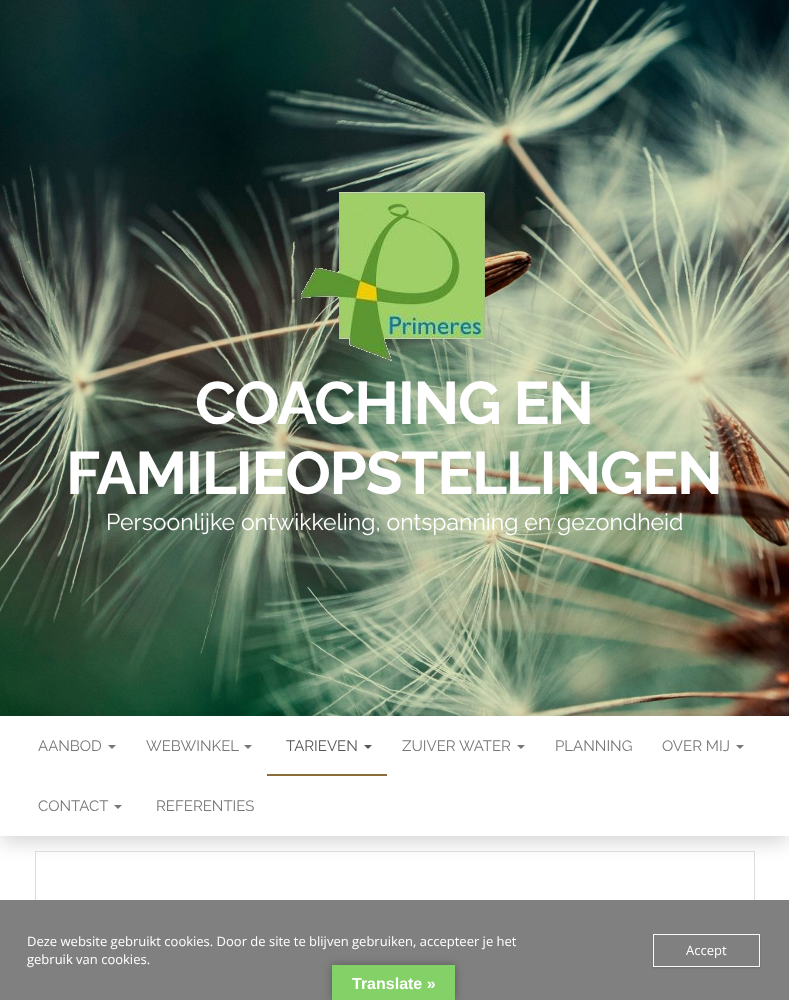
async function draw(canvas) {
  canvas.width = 789
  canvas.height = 1000
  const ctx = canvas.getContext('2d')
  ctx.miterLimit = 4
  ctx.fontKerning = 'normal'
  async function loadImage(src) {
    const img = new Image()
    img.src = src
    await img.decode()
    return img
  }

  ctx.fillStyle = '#fff'
  ctx.fillRect(0, 0, 789, 1000)
  ctx.drawImage(await loadImage('image0.png'), 0, 0, 789, 716)
  ctx.drawImage(await loadImage('image1.png'), 301, 192, 184, 169)
  ctx.letterSpacing = '-1.25px'
  ctx.font = 'bold 60px Raleway'
  ctx.fillText('COACHING EN', 195, 424)
  ctx.fillText('FAMILIEOPSTELLINGEN', 66, 494)
  ctx.letterSpacing = '0px'
  ctx.font = '23px Raleway'
  ctx.fillText('Persoonlijke ontwikkeling, ontspanning en gezondheid', 106, 530)
  ctx.save()
  ctx.beginPath()
  ctx.moveTo(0, 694)
  ctx.lineTo(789, 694)
  ctx.lineTo(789, 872)
  ctx.lineTo(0, 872)
  ctx.closePath()
  ctx.moveTo(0, 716)
  ctx.lineTo(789, 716)
  ctx.lineTo(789, 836)
  ctx.lineTo(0, 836)
  ctx.closePath()
  ctx.clip('evenodd')
  ctx.fillStyle = '#0000002b'
  ctx.filter = 'blur(9.5px)'
  ctx.beginPath()
  ctx.rect(1, 724, 787, 118)
  ctx.fill()
  ctx.filter = 'none'
  ctx.restore()
  ctx.font = '15px Raleway'
  ctx.fillStyle = '#777'
  ctx.fillText('AANBOD', 38, 751)
  ctx.beginPath()
  ctx.moveTo(108, 745)
  ctx.lineTo(116, 745)
  ctx.lineTo(112, 749)
  ctx.closePath()
  ctx.fill()
  ctx.fillText('WEBWINKEL', 146, 751)
  ctx.beginPath()
  ctx.moveTo(244, 745)
  ctx.lineTo(252, 745)
  ctx.lineTo(248, 749)
  ctx.closePath()
  ctx.fill()
  ctx.fillStyle = '#555'
  ctx.fillText('TARIEVEN', 286, 751)
  ctx.beginPath()
  ctx.moveTo(364, 745)
  ctx.lineTo(372, 745)
  ctx.lineTo(368, 749)
  ctx.closePath()
  ctx.fill()
  ctx.fillStyle = '#8a6d3b'
  ctx.fillRect(267, 774, 120, 2)
  ctx.fillStyle = '#777'
  ctx.fillText('ZUIVER WATER', 402, 751)
  ctx.beginPath()
  ctx.moveTo(517, 745)
  ctx.lineTo(525, 745)
  ctx.lineTo(521, 749)
  ctx.closePath()
  ctx.fill()
  ctx.fillText('PLANNING', 555, 751)
  ctx.fillText('OVER MIJ', 662, 751)
  ctx.beginPath()
  ctx.moveTo(736, 745)
  ctx.lineTo(744, 745)
  ctx.lineTo(740, 749)
  ctx.closePath()
  ctx.fill()
  ctx.fillText('CONTACT', 38, 811)
  ctx.beginPath()
  ctx.moveTo(114, 805)
  ctx.lineTo(122, 805)
  ctx.lineTo(118, 809)
  ctx.closePath()
  ctx.fill()
  ctx.fillText('REFERENTIES', 156, 811)
  ctx.strokeStyle = '#ddd'
  ctx.strokeRect(35.5, 851.5, 719, 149)
  ctx.fillStyle = '#7c7c7cf7'
  ctx.fillRect(0, 900, 789, 100)
  ctx.font = '13px Open Sans'
  ctx.fillStyle = '#fff'
  ctx.fillText('Deze website gebruikt cookies. Door de site te blijven gebruiken, accepteer je het', 27, 946)
  ctx.fillText('gebruik van cookies.', 27, 964)
  ctx.save()
  ctx.beginPath()
  ctx.moveTo(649, 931)
  ctx.lineTo(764, 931)
  ctx.lineTo(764, 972)
  ctx.lineTo(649, 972)
  ctx.closePath()
  ctx.moveTo(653, 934)
  ctx.lineTo(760, 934)
  ctx.lineTo(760, 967)
  ctx.lineTo(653, 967)
  ctx.closePath()
  ctx.clip('evenodd')
  ctx.fillStyle = '#00000026'
  ctx.filter = 'blur(1px)'
  ctx.beginPath()
  ctx.rect(653, 935, 107, 33)
  ctx.fill()
  ctx.filter = 'none'
  ctx.restore()
  ctx.strokeStyle = '#fbfbfb'
  ctx.strokeRect(653.5, 934.5, 106, 32)
  ctx.fillText('Accept', 686, 955)
  ctx.fillStyle = '#0000004d'
  ctx.filter = 'blur(4.5px)'
  ctx.beginPath()
  ctx.rect(332, 965, 123, 35)
  ctx.fill()
  ctx.filter = 'none'
  ctx.fillStyle = '#84d168'
  ctx.fillRect(332, 965, 123, 35)
  ctx.font = 'bold 16px Liberation Sans'
  ctx.fillStyle = '#fff'
  ctx.fillText('Translate »', 352, 989)
}

draw(document.querySelector('canvas'))
